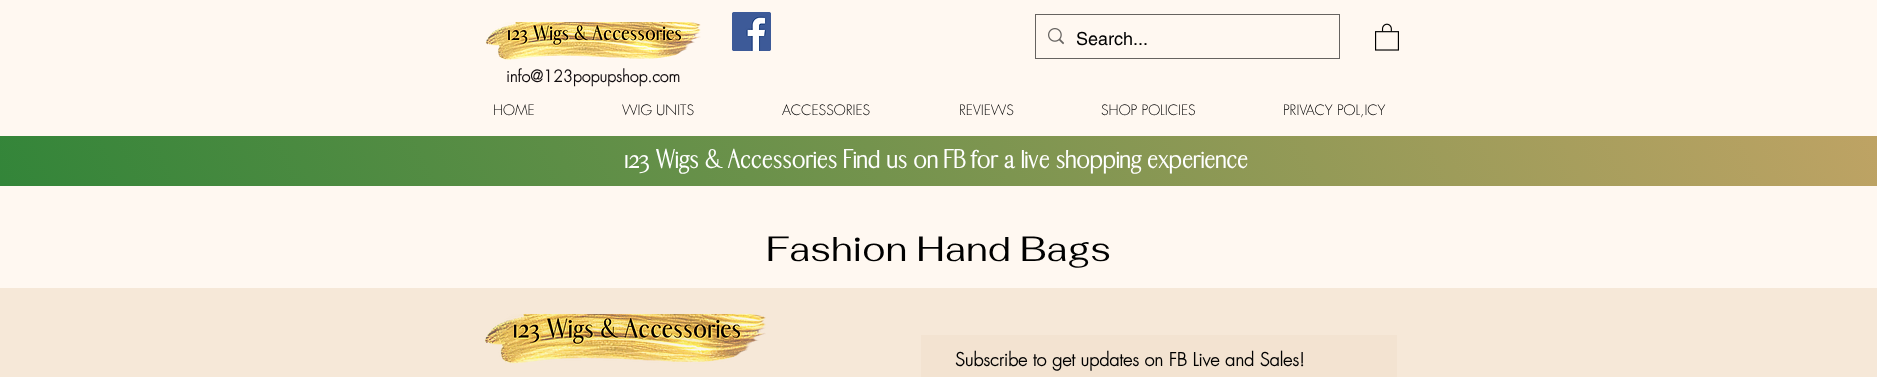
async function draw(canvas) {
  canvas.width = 1877
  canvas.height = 377
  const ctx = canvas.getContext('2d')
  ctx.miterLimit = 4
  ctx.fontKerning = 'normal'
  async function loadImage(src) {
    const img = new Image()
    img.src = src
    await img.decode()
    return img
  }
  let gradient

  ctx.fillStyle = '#fff8f1'
  ctx.fillRect(0, 0, 1877, 377)
  ctx.drawImage(await loadImage('image0.png'), 485, 22, 216, 38)
  ctx.drawImage(await loadImage('image1.png'), 732, 12, 39, 39)
  ctx.strokeStyle = '#666360'
  ctx.strokeRect(1035.5, 14.5, 304, 44)
  ctx.drawImage(await loadImage('image2.png'), 1048, 28, 16, 17)
  ctx.font = '18px helvetica'
  ctx.fillStyle = '#000'
  ctx.fillText('Search...', 1076, 45)
  ctx.drawImage(await loadImage('image3.png'), 1375, 23, 24, 28)
  ctx.font = 'bold 16px futura'
  ctx.fillStyle = '#110c0f'
  ctx.fillText('info@123popupshop.com', 506, 82)
  ctx.font = '300 14px futura'
  ctx.fillStyle = '#000'
  ctx.fillText('HOME', 493, 115)
  ctx.fillText('WIG UNITS', 622, 115)
  ctx.fillText('ACCESSORIES', 782, 115)
  ctx.fillText('REVIEWS', 959, 115)
  ctx.fillText('SHOP POLICIES', 1101, 115)
  ctx.fillText('PRIVACY POL,ICY', 1283, 115)
  gradient = ctx.createLinearGradient(158, 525, 1719, -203)
  gradient.addColorStop(0, '#338539')
  gradient.addColorStop(1, '#bea364')
  ctx.fillStyle = gradient
  ctx.fillRect(0, 136, 1877, 50)
  ctx.font = 'bold 25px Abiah'
  ctx.fillStyle = '#fff'
  ctx.fillText('123 Wigs & Accessories Find us on FB for a live shopping experience', 624, 168)
  ctx.font = '35px Fahkwang'
  ctx.fillStyle = '#000'
  ctx.fillText('Fashion Hand Bags', 766, 261)
  ctx.fillStyle = '#f6e8d8'
  ctx.fillRect(0, 288, 1877, 89)
  ctx.drawImage(await loadImage('image4.png'), 485, 314, 281, 50)
  ctx.fillStyle = '#f3e3d1'
  ctx.fillRect(921, 335, 476, 42)
  ctx.font = 'bold 18px futura'
  ctx.fillStyle = '#000'
  ctx.fillText('Subscribe to get updates on FB Live and Sales!', 955, 366)
}

draw(document.querySelector('canvas'))
